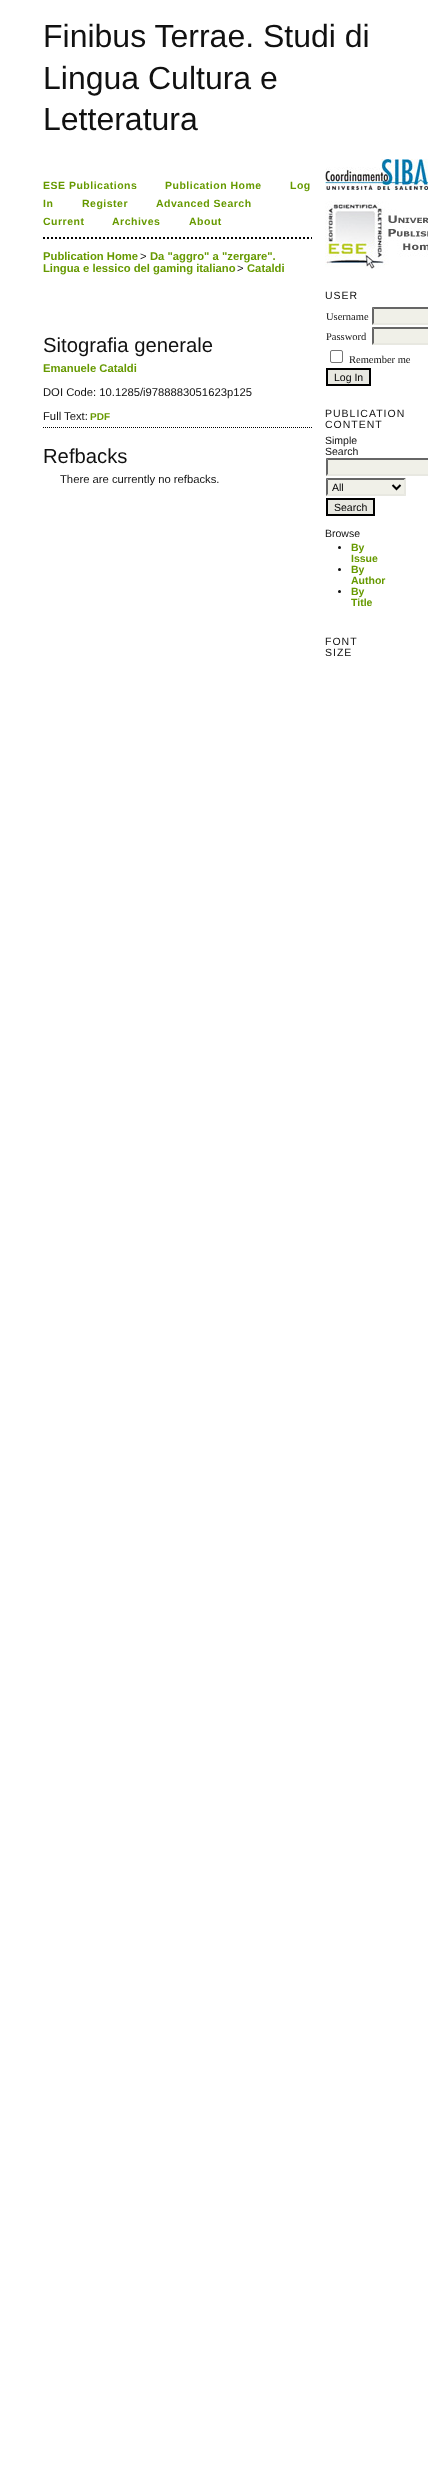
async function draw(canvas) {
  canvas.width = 428
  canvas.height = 2490
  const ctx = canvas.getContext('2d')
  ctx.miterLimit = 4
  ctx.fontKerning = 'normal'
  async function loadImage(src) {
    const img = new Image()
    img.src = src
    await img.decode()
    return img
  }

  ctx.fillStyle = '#fff'
  ctx.fillRect(0, 0, 428, 2490)
  ctx.font = '32px Liberation Sans'
  ctx.fillStyle = '#111'
  ctx.fillText('Finibus Terrae. Studi di', 43, 47)
  ctx.fillText('Lingua Cultura e', 43, 89)
  ctx.fillText('Letteratura', 43, 130)
  ctx.beginPath()
  ctx.moveTo(43, 238)
  ctx.lineTo(312, 238)
  ctx.strokeStyle = '#000'
  ctx.lineWidth = 2
  ctx.setLineDash([2, 2])
  ctx.stroke()
  ctx.letterSpacing = '0.5px'
  ctx.font = 'bold 10.5px Liberation Sans'
  ctx.fillStyle = '#690'
  ctx.fillText('ESE Publications', 43, 189)
  ctx.fillText('Publication Home', 165, 189)
  ctx.fillText('Log', 290, 189)
  ctx.fillText('In', 43, 207)
  ctx.fillText('Register', 82, 207)
  ctx.fillText('Advanced Search', 156, 207)
  ctx.fillText('Current', 43, 225)
  ctx.fillText('Archives', 112, 225)
  ctx.fillText('About', 189, 225)
  ctx.letterSpacing = '0px'
  ctx.font = 'bold 11.25px Liberation Sans'
  ctx.fillText('Publication Home', 43, 260)
  ctx.font = '11.25px Liberation Sans'
  ctx.fillStyle = '#111'
  ctx.fillText('>', 140, 260)
  ctx.font = 'bold 11.25px Liberation Sans'
  ctx.fillStyle = '#690'
  ctx.fillText('Da "aggro" a "zergare".', 150, 260)
  ctx.fillText('Lingua e lessico del gaming italiano', 43, 272)
  ctx.font = '11.25px Liberation Sans'
  ctx.fillStyle = '#111'
  ctx.fillText('>', 237, 272)
  ctx.font = 'bold 11.25px Liberation Sans'
  ctx.fillStyle = '#690'
  ctx.fillText('Cataldi', 247, 272)
  ctx.font = '20.25px Liberation Sans'
  ctx.fillStyle = '#111'
  ctx.fillText('Sitografia generale', 43, 352)
  ctx.font = 'bold 11.25px Liberation Sans'
  ctx.fillStyle = '#690'
  ctx.fillText('Emanuele Cataldi', 43, 372)
  ctx.font = '11.25px Liberation Sans'
  ctx.fillStyle = '#111'
  ctx.fillText('DOI Code: 10.1285/i9788883051623p125', 43, 396)
  ctx.fillText('Full Text:', 43, 420)
  ctx.font = 'bold 10px Liberation Sans'
  ctx.fillStyle = '#690'
  ctx.fillText('PDF', 90, 420)
  ctx.beginPath()
  ctx.moveTo(43, 427.5)
  ctx.lineTo(312, 427.5)
  ctx.lineWidth = 1
  ctx.setLineDash([1, 1])
  ctx.stroke()
  ctx.font = '20.25px Liberation Sans'
  ctx.fillStyle = '#111'
  ctx.fillText('Refbacks', 43, 463)
  ctx.font = '11.25px Liberation Sans'
  ctx.fillText('There are currently no refbacks.', 60, 483)
  ctx.drawImage(await loadImage('image0.png'), 325, 159, 103, 31)
  ctx.drawImage(await loadImage('image1.png'), 325, 201, 103, 68)
  ctx.letterSpacing = '1px'
  ctx.font = '10.5px Liberation Sans'
  ctx.fillText('USER', 325, 299)
  ctx.letterSpacing = '0px'
  ctx.font = '10.5px Liberation Serif'
  ctx.fillText('Username', 326, 320)
  ctx.fillStyle = '#f0f0e8'
  ctx.fillRect(372, 307, 56, 18)
  ctx.fillStyle = '#666'
  ctx.beginPath()
  ctx.moveTo(372, 307)
  ctx.lineTo(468, 307)
  ctx.lineTo(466, 309)
  ctx.lineTo(374, 309)
  ctx.closePath()
  ctx.fill()
  ctx.fillStyle = '#e8e8e1'
  ctx.beginPath()
  ctx.moveTo(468, 325)
  ctx.lineTo(372, 325)
  ctx.lineTo(374, 323)
  ctx.lineTo(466, 323)
  ctx.closePath()
  ctx.fill()
  ctx.fillStyle = '#666'
  ctx.beginPath()
  ctx.moveTo(372, 325)
  ctx.lineTo(372, 307)
  ctx.lineTo(374, 309)
  ctx.lineTo(374, 323)
  ctx.closePath()
  ctx.fill()
  ctx.fillStyle = '#111'
  ctx.fillText('Password', 326, 340)
  ctx.fillStyle = '#f0f0e8'
  ctx.fillRect(372, 327, 56, 18)
  ctx.fillStyle = '#666'
  ctx.beginPath()
  ctx.moveTo(372, 327)
  ctx.lineTo(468, 327)
  ctx.lineTo(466, 329)
  ctx.lineTo(374, 329)
  ctx.closePath()
  ctx.fill()
  ctx.fillStyle = '#e8e8e1'
  ctx.beginPath()
  ctx.moveTo(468, 345)
  ctx.lineTo(372, 345)
  ctx.lineTo(374, 343)
  ctx.lineTo(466, 343)
  ctx.closePath()
  ctx.fill()
  ctx.fillStyle = '#666'
  ctx.beginPath()
  ctx.moveTo(372, 345)
  ctx.lineTo(372, 327)
  ctx.lineTo(374, 329)
  ctx.lineTo(374, 343)
  ctx.closePath()
  ctx.fill()
  ctx.beginPath()
  ctx.roundRect(330.5, 350.5, 12, 12, 1.5)
  ctx.strokeStyle = '#767676'
  ctx.setLineDash([])
  ctx.stroke()
  ctx.fillStyle = '#111'
  ctx.fillText('Remember me', 349, 363)
  ctx.fillStyle = '#e8e8e1'
  ctx.beginPath()
  ctx.rect(327, 369, 43, 16)
  ctx.fill()
  ctx.strokeStyle = '#000'
  ctx.lineWidth = 2
  ctx.stroke()
  ctx.font = '10.5px Liberation Sans'
  ctx.fillStyle = '#000'
  ctx.fillText('Log In', 334, 381)
  ctx.letterSpacing = '1px'
  ctx.fillStyle = '#111'
  ctx.fillText('PUBLICATION', 325, 417)
  ctx.fillText('CONTENT', 325, 428)
  ctx.letterSpacing = '0px'
  ctx.fillText('Simple', 325, 444)
  ctx.fillText('Search', 325, 455)
  ctx.fillStyle = '#f0f0e8'
  ctx.fillRect(326, 458, 102, 18)
  ctx.fillStyle = '#666'
  ctx.beginPath()
  ctx.moveTo(326, 458)
  ctx.lineTo(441, 458)
  ctx.lineTo(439, 460)
  ctx.lineTo(328, 460)
  ctx.closePath()
  ctx.fill()
  ctx.fillStyle = '#e8e8e1'
  ctx.beginPath()
  ctx.moveTo(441, 476)
  ctx.lineTo(326, 476)
  ctx.lineTo(328, 474)
  ctx.lineTo(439, 474)
  ctx.closePath()
  ctx.fill()
  ctx.fillStyle = '#666'
  ctx.beginPath()
  ctx.moveTo(326, 476)
  ctx.lineTo(326, 458)
  ctx.lineTo(328, 460)
  ctx.lineTo(328, 474)
  ctx.closePath()
  ctx.fill()
  ctx.fillStyle = '#f0f0e8'
  ctx.fillRect(326, 478, 80, 18)
  ctx.fillStyle = '#666'
  ctx.beginPath()
  ctx.moveTo(326, 478)
  ctx.lineTo(406, 478)
  ctx.lineTo(404, 480)
  ctx.lineTo(328, 480)
  ctx.closePath()
  ctx.fill()
  ctx.fillStyle = '#e8e8e1'
  ctx.beginPath()
  ctx.moveTo(406, 478)
  ctx.lineTo(406, 496)
  ctx.lineTo(404, 494)
  ctx.lineTo(404, 480)
  ctx.closePath()
  ctx.fill()
  ctx.beginPath()
  ctx.moveTo(406, 496)
  ctx.lineTo(326, 496)
  ctx.lineTo(328, 494)
  ctx.lineTo(404, 494)
  ctx.closePath()
  ctx.fill()
  ctx.fillStyle = '#666'
  ctx.beginPath()
  ctx.moveTo(326, 496)
  ctx.lineTo(326, 478)
  ctx.lineTo(328, 480)
  ctx.lineTo(328, 494)
  ctx.closePath()
  ctx.fill()
  ctx.beginPath()
  ctx.moveTo(392.5, 485)
  ctx.lineTo(396.5, 489)
  ctx.lineTo(400.5, 485)
  ctx.stroke()
  ctx.fillStyle = '#000'
  ctx.fillText('All', 332, 491)
  ctx.fillStyle = '#e8e8e1'
  ctx.beginPath()
  ctx.rect(327, 499, 47, 16)
  ctx.fill()
  ctx.stroke()
  ctx.fillStyle = '#000'
  ctx.fillText('Search', 334, 511)
  ctx.fillStyle = '#111'
  ctx.fillText('Browse', 325, 537)
  ctx.beginPath()
  ctx.arc(339.5, 547.5, 1.5, 0, 2 * Math.PI)
  ctx.fill()
  ctx.font = 'bold 10.5px Liberation Sans'
  ctx.fillStyle = '#690'
  ctx.fillText('By', 351, 551)
  ctx.fillText('Issue', 351, 562)
  ctx.fillStyle = '#111'
  ctx.beginPath()
  ctx.arc(339.5, 569.5, 1.5, 0, 2 * Math.PI)
  ctx.fill()
  ctx.fillStyle = '#690'
  ctx.fillText('By', 351, 573)
  ctx.fillText('Author', 351, 584)
  ctx.fillStyle = '#111'
  ctx.beginPath()
  ctx.arc(339.5, 591.5, 1.5, 0, 2 * Math.PI)
  ctx.fill()
  ctx.fillStyle = '#690'
  ctx.fillText('By', 351, 595)
  ctx.fillText('Title', 351, 606)
  ctx.letterSpacing = '1px'
  ctx.font = '10.5px Liberation Sans'
  ctx.fillStyle = '#111'
  ctx.fillText('FONT', 325, 645)
  ctx.fillText('SIZE', 325, 656)
}

draw(document.querySelector('canvas'))
